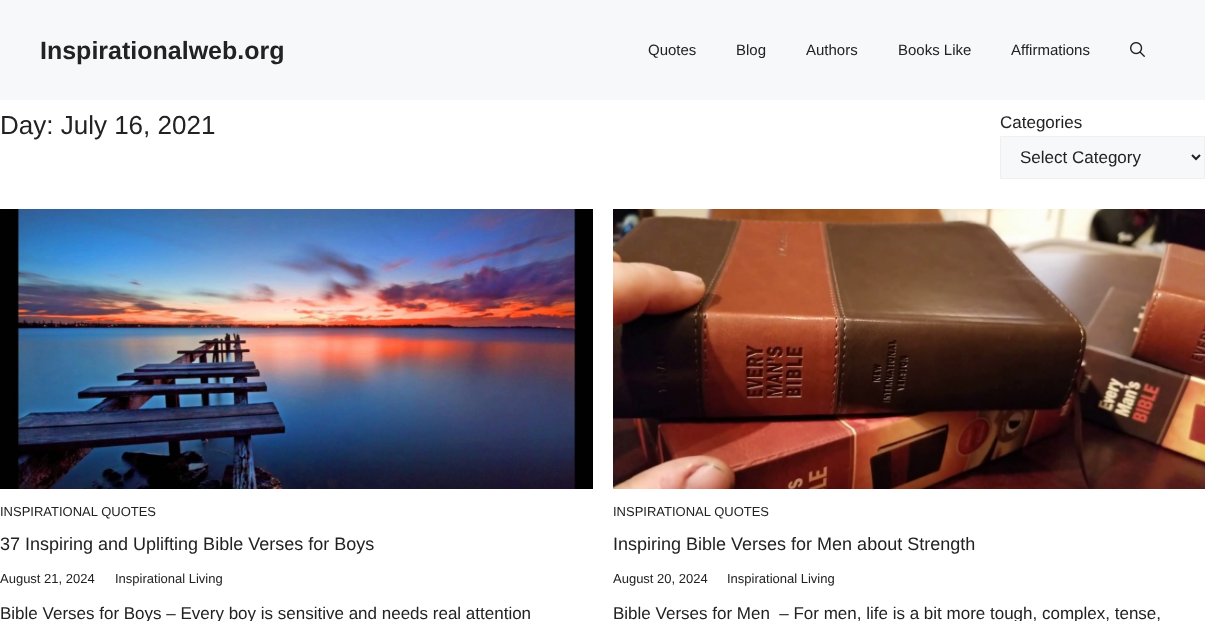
async function draw(canvas) {
  canvas.width = 1205
  canvas.height = 621
  const ctx = canvas.getContext('2d')
  ctx.miterLimit = 4
  ctx.fontKerning = 'normal'
  async function loadImage(src) {
    const img = new Image()
    img.src = src
    await img.decode()
    return img
  }

  ctx.fillStyle = '#fff'
  ctx.fillRect(0, 0, 1205, 621)
  ctx.fillStyle = '#f7f8f9'
  ctx.fillRect(0, 0, 1205, 100)
  ctx.font = 'bold 25px Liberation Sans'
  ctx.fillStyle = '#222'
  ctx.fillText('Inspirationalweb.org', 40, 59)
  ctx.font = '15px Liberation Sans'
  ctx.fillText('Quotes', 648, 55)
  ctx.fillText('Blog', 736, 55)
  ctx.fillText('Authors', 806, 55)
  ctx.fillText('Books Like', 898, 55)
  ctx.fillText('Affirmations', 1011, 55)
  ctx.drawImage(await loadImage('image0.png'), 1130, 42, 15, 15)
  ctx.font = '26px Liberation Sans'
  ctx.fillText('Day: July 16, 2021', 0, 134)
  ctx.font = '17px Liberation Sans'
  ctx.fillText('Categories', 1000, 128)
  ctx.fillStyle = '#f7f8f9'
  ctx.beginPath()
  ctx.rect(1000.5, 136.5, 204, 42)
  ctx.fill()
  ctx.strokeStyle = '#f0f0f0'
  ctx.stroke()
  ctx.beginPath()
  ctx.moveTo(1192, 155)
  ctx.lineTo(1196, 159)
  ctx.lineTo(1200, 155)
  ctx.strokeStyle = '#222'
  ctx.lineWidth = 2
  ctx.stroke()
  ctx.fillStyle = '#222'
  ctx.fillText('Select Category', 1020, 163)
  ctx.drawImage(await loadImage('image1.png'), 0, 209, 593, 280)
  ctx.font = '13px Liberation Sans'
  ctx.fillText('INSPIRATIONAL QUOTES', 0, 516)
  ctx.font = '18px Liberation Sans'
  ctx.fillText('37 Inspiring and Uplifting Bible Verses for Boys', 0, 550)
  ctx.font = '13px Liberation Sans'
  ctx.fillText('August 21, 2024', 0, 583)
  ctx.fillText('Inspirational Living', 115, 583)
  ctx.font = '17px Liberation Sans'
  ctx.fillText('Bible Verses for Boys – Every boy is sensitive and needs real attention', 0, 619)
  ctx.drawImage(await loadImage('image2.png'), 613, 209, 592, 280)
  ctx.font = '13px Liberation Sans'
  ctx.fillText('INSPIRATIONAL QUOTES', 613, 516)
  ctx.font = '18px Liberation Sans'
  ctx.fillText('Inspiring Bible Verses for Men about Strength', 613, 550)
  ctx.font = '13px Liberation Sans'
  ctx.fillText('August 20, 2024', 613, 583)
  ctx.fillText('Inspirational Living', 727, 583)
  ctx.font = '17px Liberation Sans'
  ctx.fillText('Bible Verses for Men  – For men, life is a bit more tough, complex, tense,', 613, 619)
}

draw(document.querySelector('canvas'))
